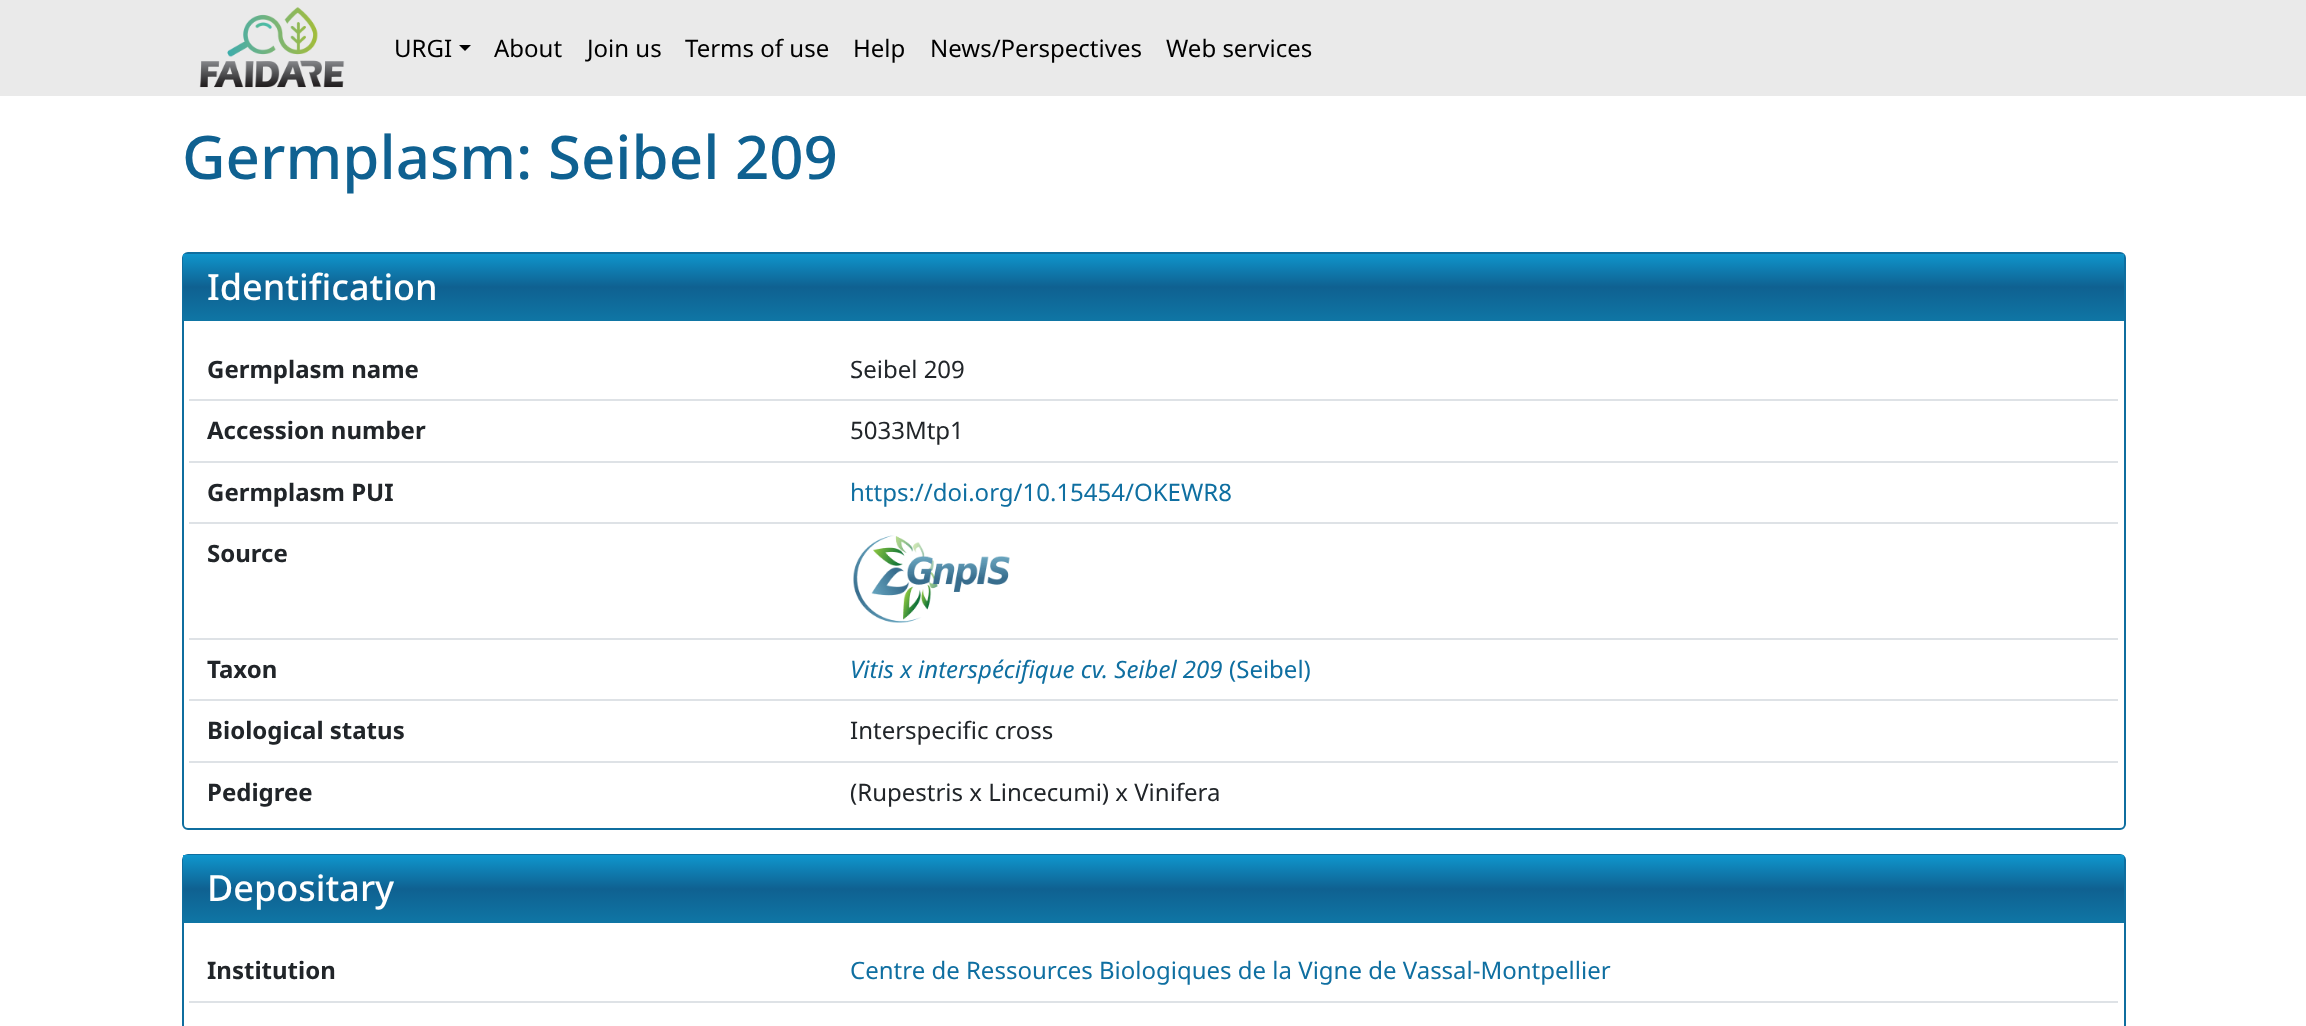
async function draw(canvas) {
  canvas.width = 2306
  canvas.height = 1026
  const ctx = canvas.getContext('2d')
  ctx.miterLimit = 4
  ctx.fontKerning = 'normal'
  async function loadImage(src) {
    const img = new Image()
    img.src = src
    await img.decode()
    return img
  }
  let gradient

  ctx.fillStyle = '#fff'
  ctx.fillRect(0, 0, 2306, 1026)
  ctx.fillStyle = '#eaeaea'
  ctx.fillRect(0, 0, 2306, 96)
  ctx.drawImage(await loadImage('image0.png'), 199, 7, 146, 81)
  ctx.font = '24px Noto Sans'
  ctx.fillStyle = '#000'
  ctx.fillText('URGI', 394, 57)
  ctx.beginPath()
  ctx.moveTo(459, 45)
  ctx.lineTo(471, 45)
  ctx.lineTo(465, 51)
  ctx.closePath()
  ctx.fill()
  ctx.fillText('About', 494, 57)
  ctx.fillText('Join us', 587, 57)
  ctx.fillText('Terms of use', 685, 57)
  ctx.fillText('Help', 853, 57)
  ctx.fillText('News/Perspectives', 930, 57)
  ctx.fillText('Web services', 1166, 57)
  ctx.font = '500 60px Noto Sans'
  ctx.fillStyle = '#0f6191'
  ctx.fillText('Germplasm: Seibel 209', 182, 179)
  ctx.beginPath()
  ctx.roundRect(183, 253, 1942, 576, 5)
  ctx.strokeStyle = '#0f6e9f'
  ctx.lineWidth = 2
  ctx.stroke()
  gradient = ctx.createLinearGradient(1154, 253, 1154, 321)
  gradient.addColorStop(0, '#0f96cd')
  gradient.addColorStop(0.5, '#0f6191')
  gradient.addColorStop(1, '#0f76a5')
  ctx.fillStyle = gradient
  ctx.fillRect(183, 254, 1941, 67)
  ctx.font = '500 36px Noto Sans'
  ctx.fillStyle = '#fff'
  ctx.fillText('Identification', 207, 300)
  ctx.font = 'bold 24px Noto Sans'
  ctx.fillStyle = '#212529'
  ctx.fillText('Germplasm name', 207, 378)
  ctx.font = '24px Noto Sans'
  ctx.fillText('Seibel 209', 850, 378)
  ctx.fillStyle = '#dee2e6'
  ctx.fillRect(189, 399, 1929, 2)
  ctx.font = 'bold 24px Noto Sans'
  ctx.fillStyle = '#212529'
  ctx.fillText('Accession number', 207, 439)
  ctx.font = '24px Noto Sans'
  ctx.fillText('5033Mtp1', 850, 439)
  ctx.fillStyle = '#dee2e6'
  ctx.fillRect(189, 461, 1929, 2)
  ctx.font = 'bold 24px Noto Sans'
  ctx.fillStyle = '#212529'
  ctx.fillText('Germplasm PUI', 207, 501)
  ctx.font = '24px Noto Sans'
  ctx.fillStyle = '#0f6fa1'
  ctx.fillText('https://doi.org/10.15454/OKEWR8', 850, 501)
  ctx.fillStyle = '#dee2e6'
  ctx.fillRect(189, 522, 1929, 2)
  ctx.font = 'bold 24px Noto Sans'
  ctx.fillStyle = '#212529'
  ctx.fillText('Source', 207, 562)
  ctx.drawImage(await loadImage('image1.png'), 853, 535, 157, 88)
  ctx.fillStyle = '#dee2e6'
  ctx.fillRect(189, 638, 1929, 2)
  ctx.fillStyle = '#212529'
  ctx.fillText('Taxon', 207, 678)
  ctx.font = 'italic 24px Noto Sans'
  ctx.fillStyle = '#0f6fa1'
  ctx.fillText('Vitis x interspécifique cv. Seibel 209', 850, 678)
  ctx.font = '24px Noto Sans'
  ctx.fillText('(Seibel)', 1229, 678)
  ctx.fillStyle = '#dee2e6'
  ctx.fillRect(189, 699, 1929, 2)
  ctx.font = 'bold 24px Noto Sans'
  ctx.fillStyle = '#212529'
  ctx.fillText('Biological status', 207, 739)
  ctx.font = '24px Noto Sans'
  ctx.fillText('Interspecific cross', 850, 739)
  ctx.fillStyle = '#dee2e6'
  ctx.fillRect(189, 761, 1929, 2)
  ctx.font = 'bold 24px Noto Sans'
  ctx.fillStyle = '#212529'
  ctx.fillText('Pedigree', 207, 801)
  ctx.font = '24px Noto Sans'
  ctx.fillText('(Rupestris x Lincecumi) x Vinifera', 850, 801)
  ctx.beginPath()
  ctx.roundRect(183, 855, 1942, 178, 5)
  ctx.stroke()
  gradient = ctx.createLinearGradient(1154, 855, 1154, 923)
  gradient.addColorStop(0, '#0f96cd')
  gradient.addColorStop(0.5, '#0f6191')
  gradient.addColorStop(1, '#0f76a5')
  ctx.fillStyle = gradient
  ctx.fillRect(183, 855, 1941, 68)
  ctx.font = '500 36px Noto Sans'
  ctx.fillStyle = '#fff'
  ctx.fillText('Depositary', 207, 901)
  ctx.font = 'bold 24px Noto Sans'
  ctx.fillStyle = '#212529'
  ctx.fillText('Institution', 207, 979)
  ctx.font = '24px Noto Sans'
  ctx.fillStyle = '#0f6fa1'
  ctx.fillText('Centre de Ressources Biologiques de la Vigne de Vassal-Montpellier', 850, 979)
  ctx.fillStyle = '#dee2e6'
  ctx.fillRect(189, 1001, 1929, 2)
}

draw(document.querySelector('canvas'))
